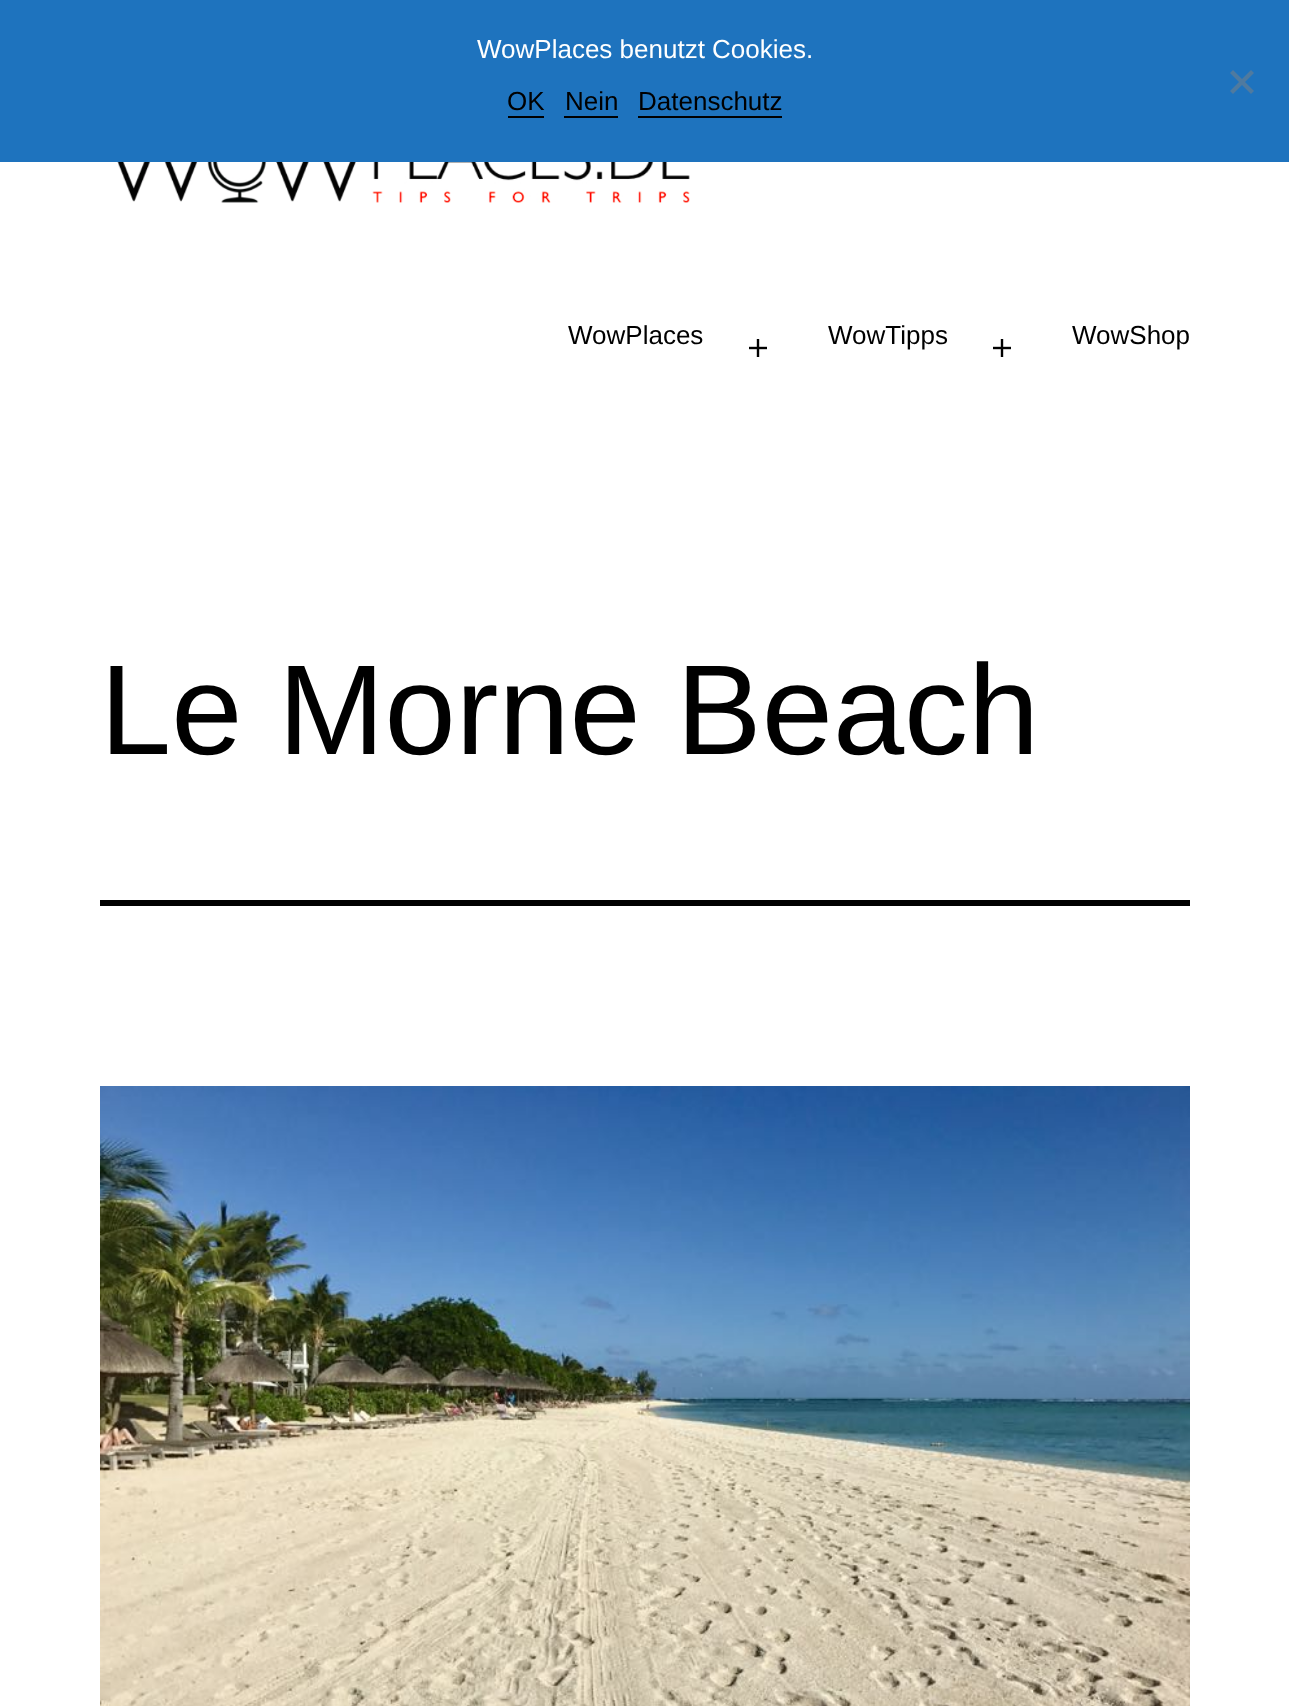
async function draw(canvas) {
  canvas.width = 1289
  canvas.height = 1706
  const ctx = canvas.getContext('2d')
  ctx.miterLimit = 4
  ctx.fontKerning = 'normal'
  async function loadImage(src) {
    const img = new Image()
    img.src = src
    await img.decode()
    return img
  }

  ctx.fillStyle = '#fff'
  ctx.fillRect(0, 0, 1289, 1706)
  ctx.fillStyle = '#1e73be'
  ctx.fillRect(0, 0, 1289, 162)
  ctx.font = '26px Liberation Sans'
  ctx.fillStyle = '#fff'
  ctx.fillText('WowPlaces benutzt Cookies.', 477, 58)
  ctx.fillStyle = '#4f7a9f'
  ctx.beginPath()
  ctx.moveTo(1251, 70)
  ctx.lineTo(1254, 73)
  ctx.lineTo(1233, 94)
  ctx.lineTo(1230, 91)
  ctx.closePath()
  ctx.fill()
  ctx.beginPath()
  ctx.moveTo(1230, 73)
  ctx.lineTo(1233, 70)
  ctx.lineTo(1254, 91)
  ctx.lineTo(1251, 94)
  ctx.closePath()
  ctx.fill()
  ctx.fillStyle = '#000'
  ctx.fillText('OK', 507, 110)
  ctx.fillRect(508, 116, 36, 2)
  ctx.fillText('Nein', 565, 110)
  ctx.fillRect(564, 116, 54, 2)
  ctx.fillText('Datenschutz', 638, 110)
  ctx.fillRect(638, 116, 144, 2)
  ctx.drawImage(await loadImage('image0.png'), 105, 162, 585, 41)
  ctx.fillText('WowPlaces', 568, 344)
  ctx.drawImage(await loadImage('image1.png'), 749, 339, 18, 18)
  ctx.fillText('WowTipps', 828, 344)
  ctx.drawImage(await loadImage('image1.png'), 993, 339, 18, 18)
  ctx.fillText('WowShop', 1072, 344)
  ctx.fillRect(100, 900, 1090, 6)
  ctx.font = '128px Liberation Sans'
  ctx.fillText('Le Morne Beach', 100, 754)
  ctx.drawImage(await loadImage('image2.png'), 100, 1086, 1090, 620)
}

draw(document.querySelector('canvas'))
